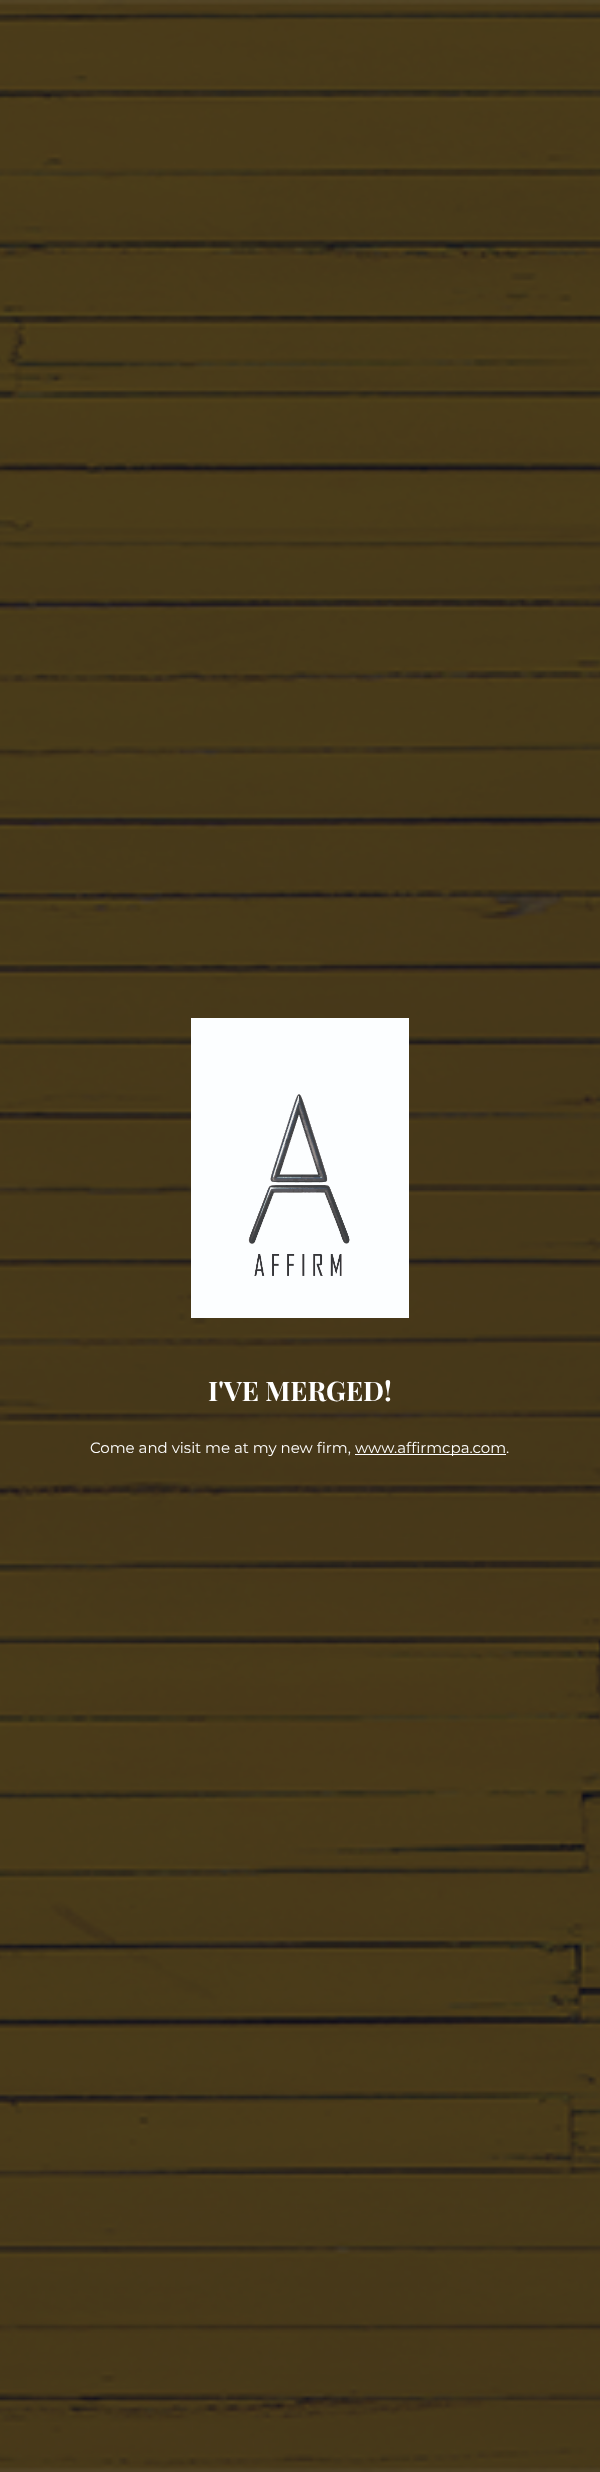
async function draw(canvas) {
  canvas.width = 600
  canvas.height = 2472
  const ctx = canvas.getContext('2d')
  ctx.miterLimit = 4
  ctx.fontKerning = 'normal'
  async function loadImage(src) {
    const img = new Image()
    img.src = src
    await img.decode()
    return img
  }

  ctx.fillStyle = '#fff'
  ctx.fillRect(0, 0, 600, 2472)
  ctx.drawImage(await loadImage('image0.png'), 0, 0, 600, 2472)
  ctx.drawImage(await loadImage('image1.png'), 191, 1018, 218, 300)
  ctx.font = 'bold 27px Playfair Display'
  ctx.fillText('I\'VE MERGED!', 208, 1401)
  ctx.font = '15px Montserrat'
  ctx.fillText('Come and visit me at my new firm,', 90, 1453)
  ctx.fillRect(355, 1454, 151, 1)
  ctx.fillText('www.affirmcpa.com.', 355, 1453)
}

draw(document.querySelector('canvas'))
